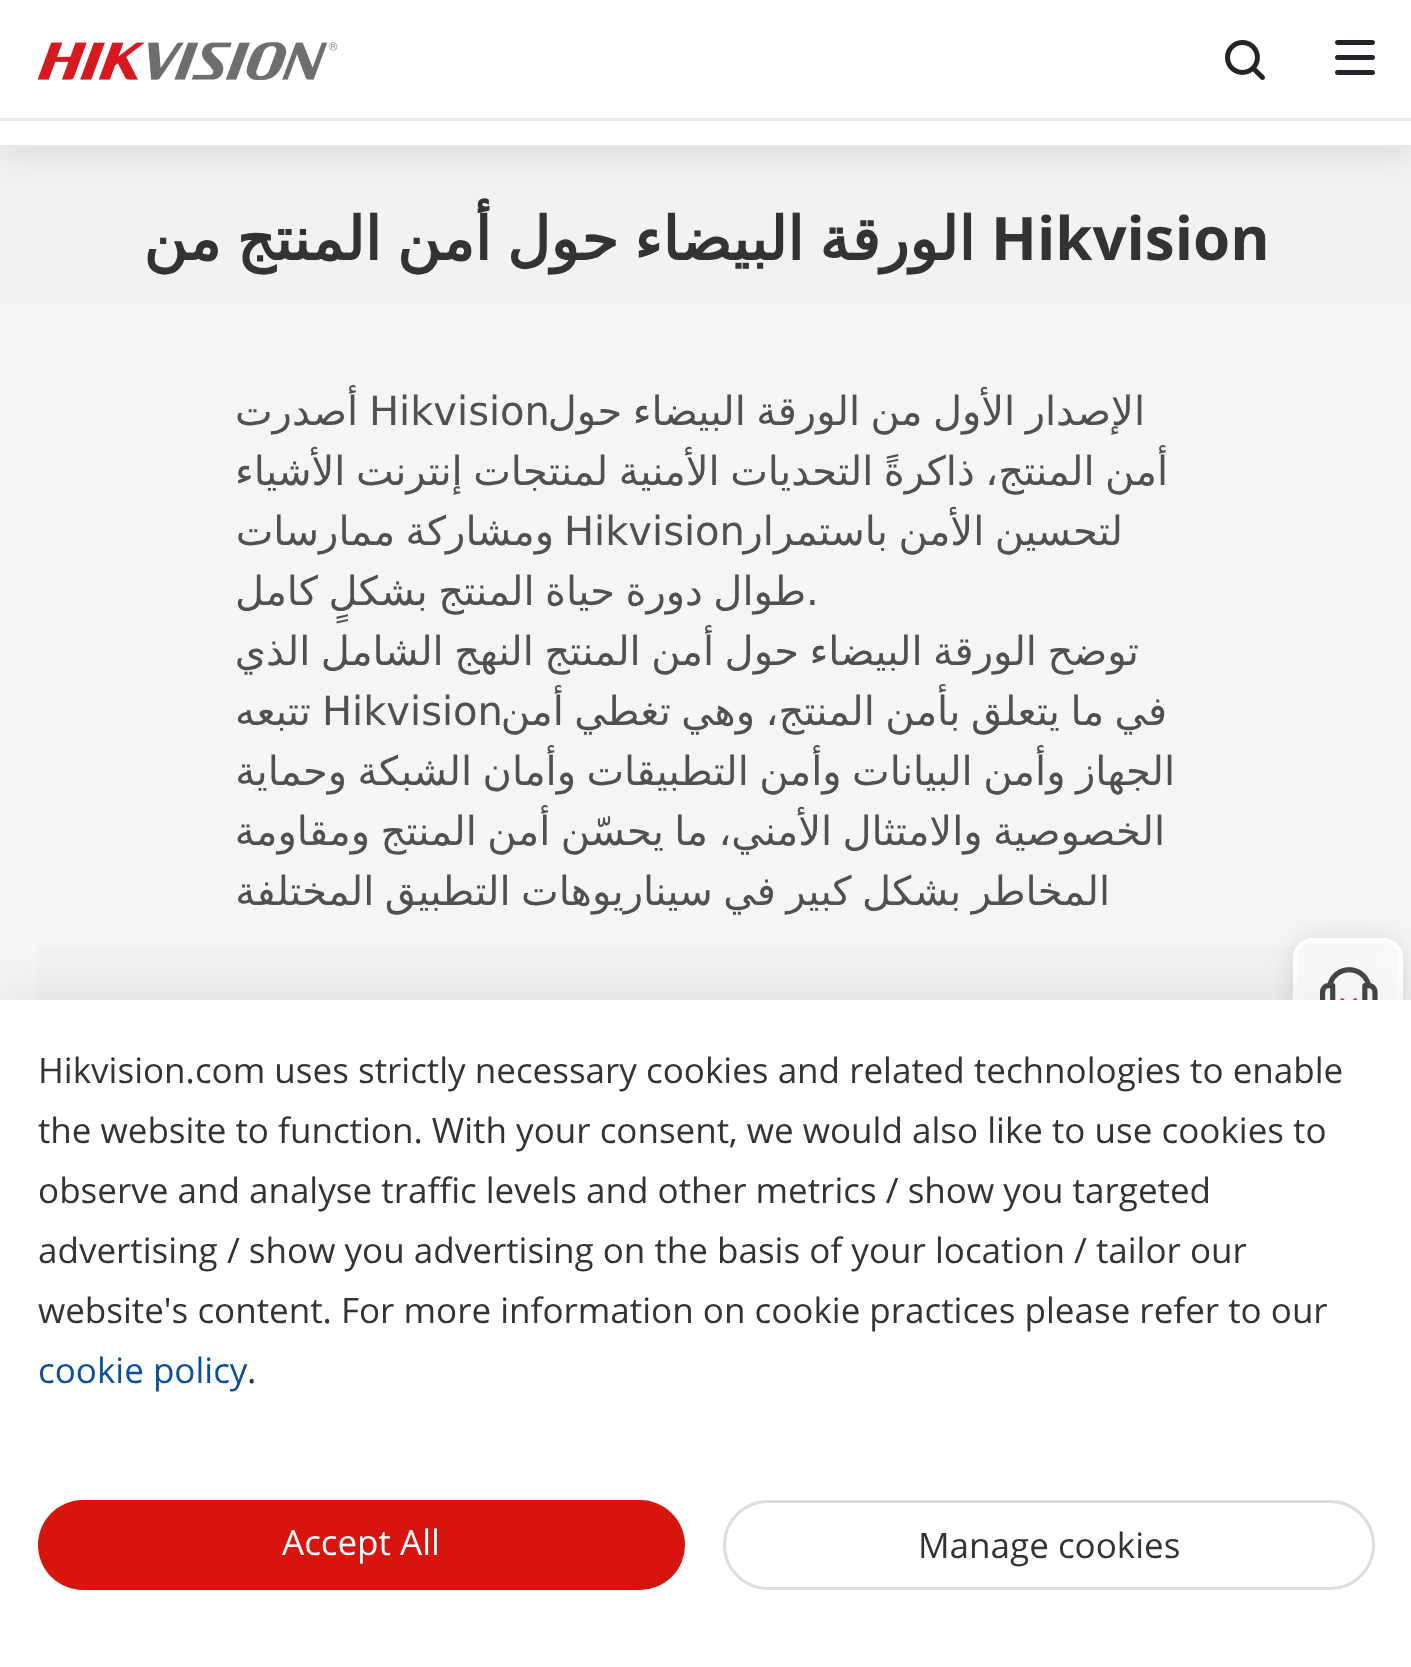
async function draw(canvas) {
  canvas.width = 1411
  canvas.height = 1667
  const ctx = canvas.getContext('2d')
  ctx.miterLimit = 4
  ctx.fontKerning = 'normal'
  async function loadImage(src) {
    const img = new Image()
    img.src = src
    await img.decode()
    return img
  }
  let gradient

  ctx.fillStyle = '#f5f5f5'
  ctx.fillRect(0, 0, 1411, 1667)
  ctx.fillStyle = '#f2f2f2'
  ctx.fillRect(0, 145, 1411, 160)
  ctx.fillStyle = '#0000001a'
  ctx.filter = 'blur(15px)'
  ctx.beginPath()
  ctx.rect(0, 130, 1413, 25)
  ctx.fill()
  ctx.filter = 'none'
  ctx.fillStyle = '#fff'
  ctx.fillRect(0, 0, 1411, 118)
  ctx.fillStyle = '#eaeaea'
  ctx.fillRect(0, 118, 1411, 3)
  ctx.drawImage(await loadImage('image0.png'), 38, 42, 300, 38)
  ctx.drawImage(await loadImage('image1.png'), 1225, 40, 40, 40)
  ctx.drawImage(await loadImage('image2.png'), 1335, 40, 40, 35)
  ctx.fillStyle = '#fff'
  ctx.fillRect(0, 121, 1411, 24)
  ctx.wordSpacing = '-3.5px'
  ctx.direction = 'rtl'
  ctx.font = 'bold 60px DejaVu Sans'
  ctx.fillStyle = '#333'
  ctx.fillText('الورقة البيضاء حول أمن المنتج من', 975, 260)
  ctx.wordSpacing = '0px'
  ctx.direction = 'ltr'
  ctx.font = 'bold 60px Open Sans'
  ctx.fillText('Hikvision', 991, 260)
  ctx.direction = 'rtl'
  ctx.font = '40px DejaVu Sans'
  ctx.fillStyle = '#505050'
  ctx.fillText('أصدرت', 358, 425)
  ctx.direction = 'ltr'
  ctx.fillText('Hikvision', 369, 425)
  ctx.wordSpacing = '-2.25px'
  ctx.direction = 'rtl'
  ctx.fillText('الإصدار الأول من الورقة البيضاء حول', 1145, 425)
  ctx.fillText('أمن المنتج، ذاكرةً التحديات الأمنية لمنتجات إنترنت الأشياء', 1168, 485)
  ctx.fillText('ومشاركة ممارسات', 554, 545)
  ctx.wordSpacing = '0px'
  ctx.direction = 'ltr'
  ctx.fillText('Hikvision', 564, 545)
  ctx.wordSpacing = '-2.25px'
  ctx.direction = 'rtl'
  ctx.fillText('لتحسين الأمن باستمرار', 1123, 545)
  ctx.fillText('طوال دورة حياة المنتج بشكلٍ كامل', 806, 605)
  ctx.wordSpacing = '0px'
  ctx.direction = 'ltr'
  ctx.fillText('.', 806, 605)
  ctx.wordSpacing = '-2.25px'
  ctx.direction = 'rtl'
  ctx.fillText('توضح الورقة البيضاء حول أمن المنتج النهج الشامل الذي', 1139, 665)
  ctx.wordSpacing = '0px'
  ctx.fillText('تتبعه', 311, 725)
  ctx.direction = 'ltr'
  ctx.fillText('Hikvision', 322, 725)
  ctx.wordSpacing = '-2.25px'
  ctx.direction = 'rtl'
  ctx.fillText('في ما يتعلق بأمن المنتج، وهي تغطي أمن', 1167, 725)
  ctx.fillText('الجهاز وأمن البيانات وأمن التطبيقات وأمان الشبكة وحماية', 1175, 785)
  ctx.fillText('الخصوصية والامتثال الأمني، ما يحسّن أمن المنتج ومقاومة', 1165, 845)
  ctx.fillText('المخاطر بشكل كبير في سيناريوهات التطبيق المختلفة', 1110, 905)
  ctx.fillStyle = '#f2f2f2'
  ctx.fillRect(38, 945, 1337, 55)
  ctx.save()
  ctx.beginPath()
  ctx.moveTo(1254, 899)
  ctx.lineTo(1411, 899)
  ctx.lineTo(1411, 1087)
  ctx.lineTo(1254, 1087)
  ctx.closePath()
  ctx.moveTo(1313, 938)
  ctx.lineTo(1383, 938)
  ctx.bezierCurveTo(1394, 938, 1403, 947, 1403, 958)
  ctx.lineTo(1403, 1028)
  ctx.bezierCurveTo(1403, 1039, 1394, 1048, 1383, 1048)
  ctx.lineTo(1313, 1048)
  ctx.bezierCurveTo(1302, 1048, 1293, 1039, 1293, 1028)
  ctx.lineTo(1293, 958)
  ctx.bezierCurveTo(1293, 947, 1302, 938, 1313, 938)
  ctx.closePath()
  ctx.clip('evenodd')
  ctx.fillStyle = '#0000001c'
  ctx.filter = 'blur(12.5px)'
  ctx.beginPath()
  ctx.roundRect(1293, 938, 110, 110, 20)
  ctx.fill()
  ctx.filter = 'none'
  ctx.restore()
  ctx.save()
  ctx.beginPath()
  ctx.roundRect(1293, 938, 110, 110, 20)
  ctx.clip()
  gradient = ctx.createLinearGradient(1348, 843, 1348, 943)
  gradient.addColorStop(0, '#f8f8f8')
  gradient.addColorStop(0.51, '#fefefe')
  gradient.addColorStop(1, '#f8f8f8')
  ctx.fillStyle = gradient
  ctx.fillRect(1293, 938, 110, 5)
  gradient = ctx.createLinearGradient(1348, 943, 1348, 1043)
  gradient.addColorStop(0, '#f8f8f8e6')
  gradient.addColorStop(0.51, '#ffffffe6')
  gradient.addColorStop(1, '#f8f8f8e6')
  ctx.fillStyle = gradient
  ctx.fillRect(1293, 943, 110, 57)
  ctx.restore()
  ctx.beginPath()
  ctx.roundRect(1295.5, 940.5, 105, 105, 17.5)
  ctx.strokeStyle = '#ffffffe6'
  ctx.lineWidth = 5
  ctx.stroke()
  ctx.drawImage(await loadImage('image3.png'), 1320, 967, 58, 33)
  ctx.fillStyle = '#0000000d'
  ctx.filter = 'blur(20px)'
  ctx.beginPath()
  ctx.rect(0, 983, 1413, 667)
  ctx.fill()
  ctx.filter = 'none'
  ctx.fillStyle = '#fff'
  ctx.fillRect(0, 1000, 1411, 667)
  ctx.wordSpacing = '0px'
  ctx.direction = 'ltr'
  ctx.font = '35px Open Sans'
  ctx.fillStyle = '#333'
  ctx.fillText('Hikvision.com uses strictly necessary cookies and related technologies to enable', 38, 1083)
  ctx.fillText('the website to function. With your consent, we would also like to use cookies to', 38, 1143)
  ctx.fillText('observe and analyse traffic levels and other metrics / show you targeted', 38, 1203)
  ctx.fillText('advertising / show you advertising on the basis of your location / tailor our', 38, 1263)
  ctx.fillText('website\'s content. For more information on cookie practices please refer to our', 38, 1323)
  ctx.fillStyle = '#094f9c'
  ctx.fillText('cookie policy', 38, 1383)
  ctx.fillStyle = '#333'
  ctx.fillText('.', 247, 1383)
  ctx.fillStyle = '#d7150e'
  ctx.beginPath()
  ctx.roundRect(38, 1500, 647, 90, 45)
  ctx.fill()
  ctx.fillStyle = '#fff'
  ctx.fillText('Accept All', 282, 1555)
  ctx.beginPath()
  ctx.roundRect(724.5, 1501.5, 649, 87, 43.5)
  ctx.strokeStyle = '#ddd'
  ctx.lineWidth = 3
  ctx.stroke()
  ctx.fillStyle = '#333'
  ctx.fillText('Manage cookies', 918, 1558)
}

draw(document.querySelector('canvas'))
